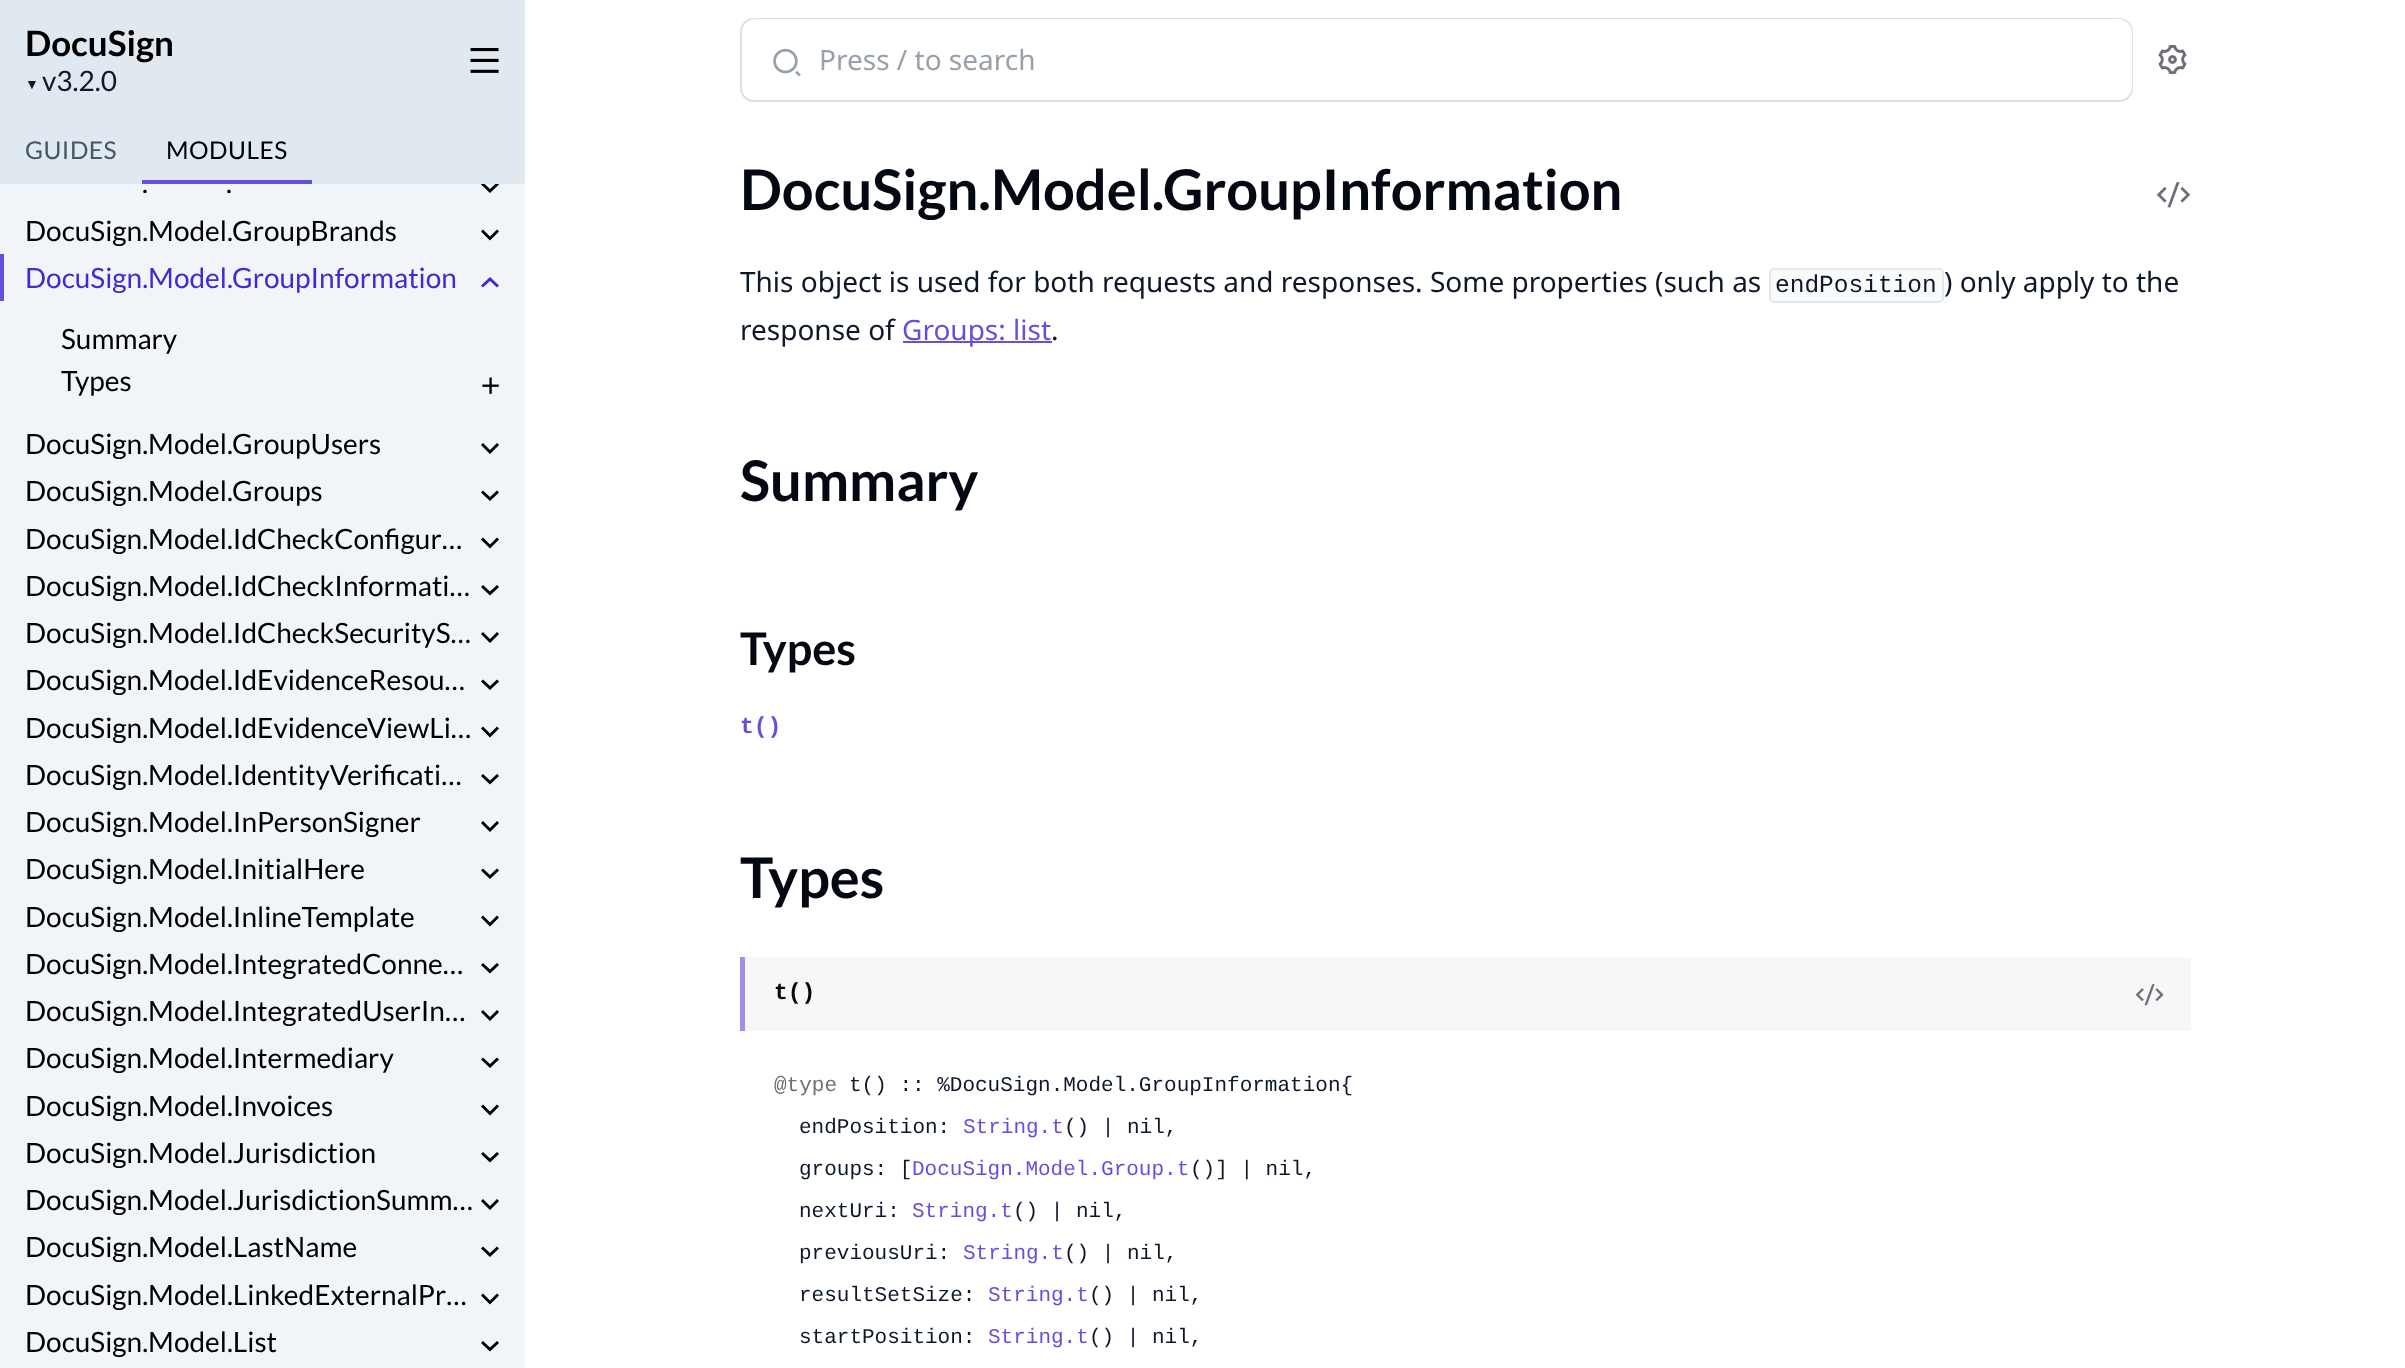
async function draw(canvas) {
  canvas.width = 2405
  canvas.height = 1368
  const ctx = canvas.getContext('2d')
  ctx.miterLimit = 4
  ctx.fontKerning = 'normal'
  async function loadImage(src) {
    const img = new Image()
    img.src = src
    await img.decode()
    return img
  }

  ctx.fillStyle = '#fff'
  ctx.fillRect(0, 0, 2405, 1368)
  ctx.fillStyle = '#f0f5f9'
  ctx.fillRect(0, 184, 525, 1184)
  ctx.fillStyle = '#e0e8f0'
  ctx.fillRect(0, 0, 525, 184)
  ctx.font = 'bold 35px Lato'
  ctx.fillStyle = '#000'
  ctx.fillText('DocuSign', 25, 56)
  ctx.font = '14px Liberation Sans'
  ctx.fillStyle = '#0d192b'
  ctx.fillText('▼', 25, 89)
  ctx.font = '28px Lato'
  ctx.fillText('v3.2.0', 42, 91)
  ctx.letterSpacing = '0.5px'
  ctx.font = '24.5px Lato'
  ctx.fillStyle = '#445769'
  ctx.fillText('GUIDES', 25, 159)
  ctx.fillStyle = '#674fde'
  ctx.fillRect(142, 180, 170, 4)
  ctx.fillStyle = '#000'
  ctx.fillText('MODULES', 166, 159)
  ctx.letterSpacing = '0px'
  ctx.font = '28px Lato'
  ctx.fillText('.', 142, 193)
  ctx.fillText('.', 226, 193)
  ctx.save()
  ctx.beginPath()
  ctx.rect(0, 184, 525, 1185)
  ctx.clip()
  ctx.beginPath()
  ctx.moveTo(490, 189)
  ctx.lineTo(497, 182.5)
  ctx.lineTo(499, 184.5)
  ctx.lineTo(490, 193)
  ctx.lineTo(481, 184.5)
  ctx.lineTo(483, 182.5)
  ctx.closePath()
  ctx.fill()
  ctx.restore()
  ctx.fillText('DocuSign.Model.GroupBrands', 25, 241)
  ctx.beginPath()
  ctx.moveTo(490, 236.5)
  ctx.lineTo(497, 229.5)
  ctx.lineTo(499, 231.5)
  ctx.lineTo(490, 240.5)
  ctx.lineTo(481, 231.5)
  ctx.lineTo(483, 229.5)
  ctx.closePath()
  ctx.fill()
  ctx.fillStyle = '#674fde'
  ctx.fillRect(0, 254, 4, 47)
  ctx.fillStyle = '#4428d2'
  ctx.fillText('DocuSign.Model.GroupInformation', 25, 288)
  ctx.beginPath()
  ctx.moveTo(490, 281)
  ctx.lineTo(483, 287.5)
  ctx.lineTo(481, 285.5)
  ctx.lineTo(490, 277)
  ctx.lineTo(499, 285.5)
  ctx.lineTo(497, 287.5)
  ctx.closePath()
  ctx.fill()
  ctx.fillStyle = '#000'
  ctx.fillText('Summary', 61, 349)
  ctx.fillText('Types', 61, 391)
  ctx.drawImage(await loadImage('image0.png'), 482, 377, 17, 17)
  ctx.fillText('DocuSign.Model.GroupUsers', 25, 454)
  ctx.beginPath()
  ctx.moveTo(490, 450)
  ctx.lineTo(497, 443)
  ctx.lineTo(499, 445)
  ctx.lineTo(490, 454)
  ctx.lineTo(481, 445)
  ctx.lineTo(483, 443)
  ctx.closePath()
  ctx.moveTo(490, 497)
  ctx.lineTo(497, 490.5)
  ctx.lineTo(499, 492.5)
  ctx.lineTo(490, 501)
  ctx.lineTo(481, 492.5)
  ctx.lineTo(483, 490.5)
  ctx.closePath()
  ctx.fill()
  ctx.fillText('DocuSign.Model.Groups', 25, 501)
  ctx.fillText('DocuSign.Model.IdCheckConfigur…', 25, 549)
  ctx.beginPath()
  ctx.moveTo(490, 544.5)
  ctx.lineTo(497, 537.5)
  ctx.lineTo(499, 539.5)
  ctx.lineTo(490, 548.5)
  ctx.lineTo(481, 539.5)
  ctx.lineTo(483, 537.5)
  ctx.closePath()
  ctx.moveTo(490, 591.5)
  ctx.lineTo(497, 585)
  ctx.lineTo(499, 587)
  ctx.lineTo(490, 595.5)
  ctx.lineTo(481, 587)
  ctx.lineTo(483, 585)
  ctx.closePath()
  ctx.fill()
  ctx.fillText('DocuSign.Model.IdCheckInformati…', 25, 596)
  ctx.fillText('DocuSign.Model.IdCheckSecurityS…', 25, 643)
  ctx.beginPath()
  ctx.moveTo(490, 639)
  ctx.lineTo(497, 632)
  ctx.lineTo(499, 634)
  ctx.lineTo(490, 643)
  ctx.lineTo(481, 634)
  ctx.lineTo(483, 632)
  ctx.closePath()
  ctx.moveTo(490, 686)
  ctx.lineTo(497, 679.5)
  ctx.lineTo(499, 681.5)
  ctx.lineTo(490, 690)
  ctx.lineTo(481, 681.5)
  ctx.lineTo(483, 679.5)
  ctx.closePath()
  ctx.fill()
  ctx.fillText('DocuSign.Model.IdEvidenceResou…', 25, 690)
  ctx.fillText('DocuSign.Model.IdEvidenceViewLi…', 25, 738)
  ctx.beginPath()
  ctx.moveTo(490, 733.5)
  ctx.lineTo(497, 726.5)
  ctx.lineTo(499, 728.5)
  ctx.lineTo(490, 737.5)
  ctx.lineTo(481, 728.5)
  ctx.lineTo(483, 726.5)
  ctx.closePath()
  ctx.moveTo(490, 780.5)
  ctx.lineTo(497, 774)
  ctx.lineTo(499, 776)
  ctx.lineTo(490, 784.5)
  ctx.lineTo(481, 776)
  ctx.lineTo(483, 774)
  ctx.closePath()
  ctx.fill()
  ctx.fillText('DocuSign.Model.IdentityVerificati…', 25, 785)
  ctx.fillText('DocuSign.Model.InPersonSigner', 25, 832)
  ctx.beginPath()
  ctx.moveTo(490, 828)
  ctx.lineTo(497, 821)
  ctx.lineTo(499, 823)
  ctx.lineTo(490, 832)
  ctx.lineTo(481, 823)
  ctx.lineTo(483, 821)
  ctx.closePath()
  ctx.moveTo(490, 875)
  ctx.lineTo(497, 868.5)
  ctx.lineTo(499, 870.5)
  ctx.lineTo(490, 879)
  ctx.lineTo(481, 870.5)
  ctx.lineTo(483, 868.5)
  ctx.closePath()
  ctx.fill()
  ctx.fillText('DocuSign.Model.InitialHere', 25, 879)
  ctx.fillText('DocuSign.Model.InlineTemplate', 25, 927)
  ctx.beginPath()
  ctx.moveTo(490, 922.5)
  ctx.lineTo(497, 915.5)
  ctx.lineTo(499, 917.5)
  ctx.lineTo(490, 926.5)
  ctx.lineTo(481, 917.5)
  ctx.lineTo(483, 915.5)
  ctx.closePath()
  ctx.moveTo(490, 969.5)
  ctx.lineTo(497, 963)
  ctx.lineTo(499, 965)
  ctx.lineTo(490, 973.5)
  ctx.lineTo(481, 965)
  ctx.lineTo(483, 963)
  ctx.closePath()
  ctx.fill()
  ctx.fillText('DocuSign.Model.IntegratedConne…', 25, 974)
  ctx.fillText('DocuSign.Model.IntegratedUserIn…', 25, 1021)
  ctx.beginPath()
  ctx.moveTo(490, 1017)
  ctx.lineTo(497, 1010)
  ctx.lineTo(499, 1012)
  ctx.lineTo(490, 1021)
  ctx.lineTo(481, 1012)
  ctx.lineTo(483, 1010)
  ctx.closePath()
  ctx.moveTo(490, 1064)
  ctx.lineTo(497, 1057.5)
  ctx.lineTo(499, 1059.5)
  ctx.lineTo(490, 1068)
  ctx.lineTo(481, 1059.5)
  ctx.lineTo(483, 1057.5)
  ctx.closePath()
  ctx.fill()
  ctx.fillText('DocuSign.Model.Intermediary', 25, 1068)
  ctx.fillText('DocuSign.Model.Invoices', 25, 1116)
  ctx.beginPath()
  ctx.moveTo(490, 1111.5)
  ctx.lineTo(497, 1104.5)
  ctx.lineTo(499, 1106.5)
  ctx.lineTo(490, 1115.5)
  ctx.lineTo(481, 1106.5)
  ctx.lineTo(483, 1104.5)
  ctx.closePath()
  ctx.moveTo(490, 1158.5)
  ctx.lineTo(497, 1152)
  ctx.lineTo(499, 1154)
  ctx.lineTo(490, 1162.5)
  ctx.lineTo(481, 1154)
  ctx.lineTo(483, 1152)
  ctx.closePath()
  ctx.fill()
  ctx.fillText('DocuSign.Model.Jurisdiction', 25, 1163)
  ctx.fillText('DocuSign.Model.JurisdictionSumm…', 25, 1210)
  ctx.beginPath()
  ctx.moveTo(490, 1206)
  ctx.lineTo(497, 1199)
  ctx.lineTo(499, 1201)
  ctx.lineTo(490, 1210)
  ctx.lineTo(481, 1201)
  ctx.lineTo(483, 1199)
  ctx.closePath()
  ctx.moveTo(490, 1253)
  ctx.lineTo(497, 1246.5)
  ctx.lineTo(499, 1248.5)
  ctx.lineTo(490, 1257)
  ctx.lineTo(481, 1248.5)
  ctx.lineTo(483, 1246.5)
  ctx.closePath()
  ctx.fill()
  ctx.fillText('DocuSign.Model.LastName', 25, 1257)
  ctx.fillText('DocuSign.Model.LinkedExternalPr…', 25, 1305)
  ctx.beginPath()
  ctx.moveTo(490, 1300.5)
  ctx.lineTo(497, 1293.5)
  ctx.lineTo(499, 1295.5)
  ctx.lineTo(490, 1304.5)
  ctx.lineTo(481, 1295.5)
  ctx.lineTo(483, 1293.5)
  ctx.closePath()
  ctx.moveTo(490, 1347.5)
  ctx.lineTo(497, 1341)
  ctx.lineTo(499, 1343)
  ctx.lineTo(490, 1351.5)
  ctx.lineTo(481, 1343)
  ctx.lineTo(483, 1341)
  ctx.closePath()
  ctx.fill()
  ctx.fillText('DocuSign.Model.List', 25, 1352)
  ctx.drawImage(await loadImage('image1.png'), 470, 48, 29, 25)
  ctx.beginPath()
  ctx.roundRect(741, 19, 1391, 82, 13)
  ctx.strokeStyle = '#d8e0e9'
  ctx.lineWidth = 2
  ctx.stroke()
  ctx.fillStyle = '#fff'
  ctx.beginPath()
  ctx.roundRect(742, 19, 1390, 81, 14)
  ctx.fill()
  ctx.drawImage(await loadImage('image2.png'), 773, 48, 28, 29)
  ctx.font = '28px Noto Sans'
  ctx.fillStyle = '#98a1aa'
  ctx.fillText('Press / to search', 819, 70)
  ctx.drawImage(await loadImage('image3.png'), 2158, 44, 29, 31)
  ctx.font = 'bold 56px Lato'
  ctx.fillStyle = '#030812'
  ctx.fillText('DocuSign.Model.GroupInformation', 740, 210)
  ctx.drawImage(await loadImage('image4.png'), 2156, 182, 35, 26)
  ctx.font = '28px Noto Sans'
  ctx.fillStyle = '#0d192b'
  ctx.fillText('This object is used for both requests and responses. Some properties (such as', 740, 292)
  ctx.fillStyle = '#f8fafc'
  ctx.beginPath()
  ctx.roundRect(1770, 269, 173, 33, 4)
  ctx.fill()
  ctx.strokeStyle = '#e0e8f0'
  ctx.stroke()
  ctx.font = '24.5px Liberation Mono'
  ctx.fillStyle = '#0d192b'
  ctx.fillText('endPosition', 1775, 292)
  ctx.font = '28px Noto Sans'
  ctx.fillText(') only apply to the', 1944, 292)
  ctx.fillText('response of', 740, 340)
  ctx.fillStyle = '#674fde'
  ctx.fillRect(903, 341, 149, 2)
  ctx.fillText('Groups: list', 902, 340)
  ctx.fillStyle = '#0d192b'
  ctx.fillText('.', 1051, 340)
  ctx.font = 'bold 56px Lato'
  ctx.fillStyle = '#030812'
  ctx.fillText('Summary', 740, 501)
  ctx.font = 'bold 45px Lato'
  ctx.fillText('Types', 740, 665)
  ctx.font = 'bold 23px Liberation Mono'
  ctx.fillStyle = '#674fde'
  ctx.fillText('t()', 740, 733)
  ctx.font = 'bold 56px Lato'
  ctx.fillStyle = '#030812'
  ctx.fillText('Types', 740, 898)
  ctx.fillStyle = '#f7f7f8'
  ctx.fillRect(745, 957, 1446, 74)
  ctx.fillStyle = '#9f90ea'
  ctx.fillRect(740, 957, 5, 74)
  ctx.font = 'bold 23px Liberation Mono'
  ctx.fillStyle = '#030812'
  ctx.fillText('t()', 774, 999)
  ctx.drawImage(await loadImage('image5.png'), 2135, 984, 29, 22)
  ctx.font = '21px Liberation Mono'
  ctx.fillStyle = '#6f6f7b'
  ctx.fillText('@type', 774, 1091)
  ctx.fillStyle = '#0d192b'
  ctx.fillText('t() :: %DocuSign.Model.GroupInformation{', 849, 1091)
  ctx.fillText('endPosition:', 799, 1133)
  ctx.fillStyle = '#674fde'
  ctx.fillText('String.t', 963, 1133)
  ctx.fillStyle = '#0d192b'
  ctx.fillText('() | nil,', 1064, 1133)
  ctx.fillText('groups: [', 799, 1175)
  ctx.fillStyle = '#674fde'
  ctx.fillText('DocuSign.Model.Group.t', 912, 1175)
  ctx.fillStyle = '#0d192b'
  ctx.fillText('()] | nil,', 1190, 1175)
  ctx.fillText('nextUri:', 799, 1217)
  ctx.fillStyle = '#674fde'
  ctx.fillText('String.t', 912, 1217)
  ctx.fillStyle = '#0d192b'
  ctx.fillText('() | nil,', 1013, 1217)
  ctx.fillText('previousUri:', 799, 1259)
  ctx.fillStyle = '#674fde'
  ctx.fillText('String.t', 963, 1259)
  ctx.fillStyle = '#0d192b'
  ctx.fillText('() | nil,', 1064, 1259)
  ctx.fillText('resultSetSize:', 799, 1301)
  ctx.fillStyle = '#674fde'
  ctx.fillText('String.t', 988, 1301)
  ctx.fillStyle = '#0d192b'
  ctx.fillText('() | nil,', 1089, 1301)
  ctx.fillText('startPosition:', 799, 1343)
  ctx.fillStyle = '#674fde'
  ctx.fillText('String.t', 988, 1343)
  ctx.fillStyle = '#0d192b'
  ctx.fillText('() | nil,', 1089, 1343)
}

draw(document.querySelector('canvas'))
